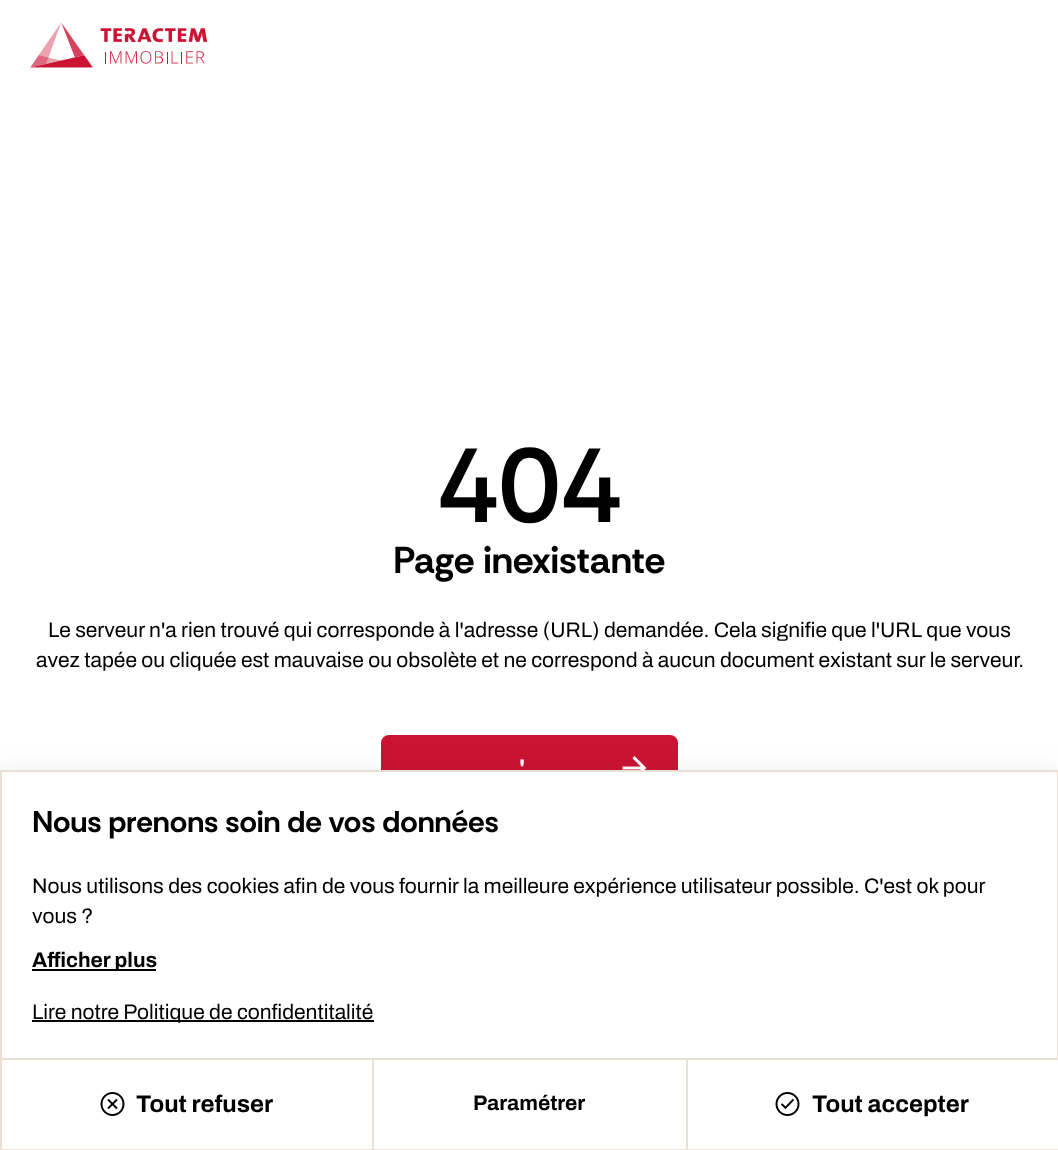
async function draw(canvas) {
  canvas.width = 1058
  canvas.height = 1150
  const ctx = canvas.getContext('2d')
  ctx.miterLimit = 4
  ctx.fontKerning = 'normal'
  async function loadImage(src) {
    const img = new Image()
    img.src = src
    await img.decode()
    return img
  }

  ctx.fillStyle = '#fff'
  ctx.fillRect(0, 0, 1058, 1150)
  ctx.drawImage(await loadImage('image0.png'), 30, 23, 177, 45)
  ctx.font = '100 105px Rethink Sans'
  ctx.fillStyle = '#000'
  ctx.fillText('404', 437, 522)
  ctx.font = '100 37.5px "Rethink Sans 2"'
  ctx.fillText('Page inexistante', 393, 573)
  ctx.font = '600 21px Archivo'
  ctx.fillText('Le serveur n\'a rien trouvé qui corresponde à l\'adresse (URL) demandée. Cela signifie que l\'URL que vous', 48, 637)
  ctx.fillText('avez tapée ou cliquée est mauvaise ou obsolète et ne correspond à aucun document existant sur le serveur.', 36, 667)
  ctx.fillStyle = '#cc1334'
  ctx.beginPath()
  ctx.roundRect(382, 736, 295, 64, 7)
  ctx.fill()
  ctx.strokeStyle = '#cc1334'
  ctx.lineWidth = 2
  ctx.stroke()
  ctx.font = '600 24px "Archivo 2"'
  ctx.fillStyle = '#fff'
  ctx.fillText('\'', 519, 776)
  ctx.drawImage(await loadImage('image1.png'), 622, 756, 25, 14)
  ctx.fillStyle = '#0000001a'
  ctx.filter = 'blur(15px)'
  ctx.beginPath()
  ctx.rect(0, 776, 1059, 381)
  ctx.fill()
  ctx.filter = 'none'
  ctx.fillStyle = '#fff'
  ctx.fillRect(2, 772, 1055, 286)
  ctx.strokeStyle = '#e9dfd2'
  ctx.strokeRect(1, 771, 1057, 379)
  ctx.font = '100 30px "Rethink Sans 2"'
  ctx.fillStyle = '#000'
  ctx.fillText('Nous prenons soin de vos données', 32, 832)
  ctx.font = '600 21px Archivo'
  ctx.fillText('Nous utilisons des cookies afin de vous fournir la meilleure expérience utilisateur possible. C\'est ok pour', 32, 893)
  ctx.fillText('vous ?', 32, 923)
  ctx.fillRect(32, 969, 124, 2)
  ctx.font = '600 21px "Archivo 2"'
  ctx.fillText('Afficher plus', 32, 967)
  ctx.fillRect(32, 1020, 342, 2)
  ctx.font = '600 21px Archivo'
  ctx.fillText('Lire notre Politique de confidentitalité', 32, 1019)
  ctx.fillStyle = '#fff'
  ctx.fillRect(2, 1060, 1056, 89)
  ctx.fillStyle = '#e9dfd2'
  ctx.fillRect(2, 1058, 1056, 2)
  ctx.drawImage(await loadImage('image2.png'), 100, 1092, 25, 24)
  ctx.font = '600 24px "Archivo 2"'
  ctx.fillStyle = '#000'
  ctx.fillText('Tout refuser', 136, 1112)
  ctx.fillStyle = '#e9dfd2'
  ctx.fillRect(686, 1059, 2, 90)
  ctx.fillRect(372, 1059, 2, 90)
  ctx.font = '600 21px "Archivo 2"'
  ctx.fillStyle = '#000'
  ctx.fillText('Paramétrer', 473, 1110)
  ctx.drawImage(await loadImage('image3.png'), 775, 1092, 25, 24)
  ctx.font = '600 24px "Archivo 2"'
  ctx.fillText('Tout accepter', 812, 1112)
}

draw(document.querySelector('canvas'))
